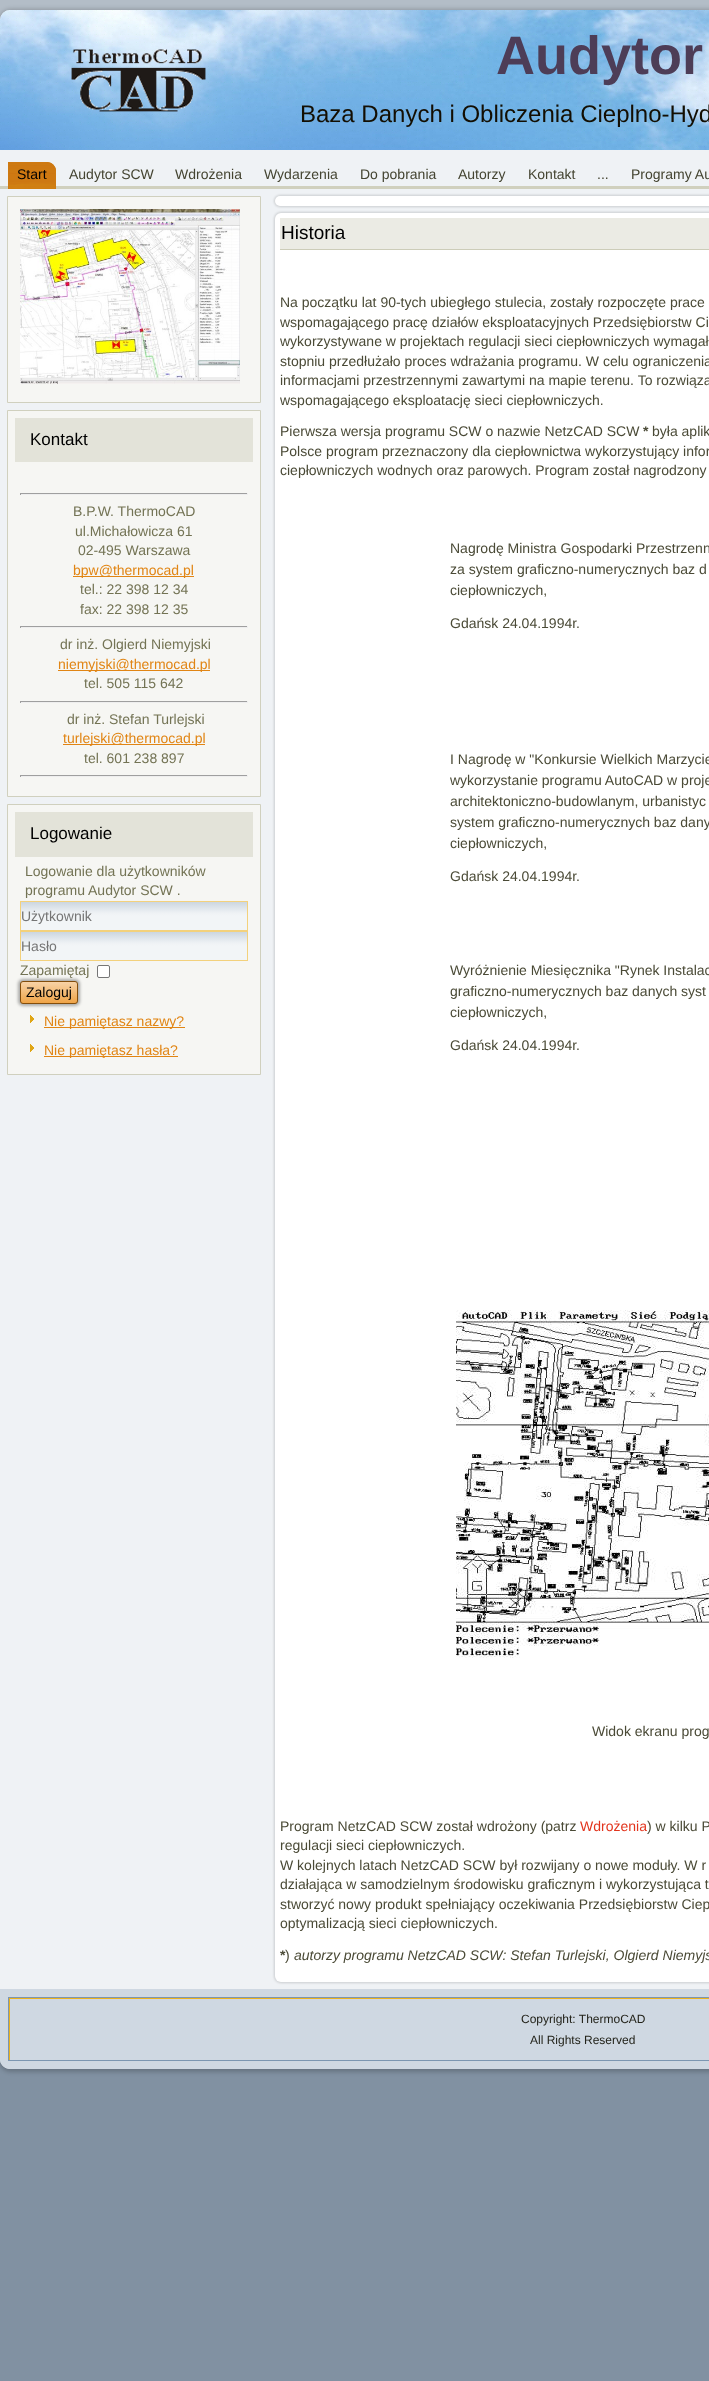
async function draw(canvas) {
  canvas.width = 709
  canvas.height = 2381
  const ctx = canvas.getContext('2d')
  ctx.miterLimit = 4
  ctx.fontKerning = 'normal'
  async function loadImage(src) {
    const img = new Image()
    img.src = src
    await img.decode()
    return img
  }
  let gradient

  ctx.fillStyle = '#fff'
  ctx.fillRect(0, 0, 709, 2381)
  gradient = ctx.createLinearGradient(582, 0, 582, 2381)
  gradient.addColorStop(0, '#b3bdc7')
  gradient.addColorStop(0.21, '#b3bdc7')
  gradient.addColorStop(0.34, '#8191a2')
  ctx.fillStyle = gradient
  ctx.fillRect(0, 0, 709, 2381)
  ctx.fillStyle = '#00000033'
  ctx.filter = 'blur(2px)'
  ctx.beginPath()
  ctx.roundRect(-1, 9, 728, 2063, 12)
  ctx.fill()
  ctx.filter = 'none'
  ctx.fillStyle = '#eff2f5'
  ctx.beginPath()
  ctx.roundRect(0, 10, 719, 2059, 10)
  ctx.fill()
  ctx.drawImage(await loadImage('image0.png'), 0, 10, 709, 140)
  ctx.font = 'bold 54px Liberation Sans'
  ctx.fillStyle = '#4d3d57'
  ctx.fillText('Audytor', 496, 74)
  ctx.font = '24px Liberation Sans'
  ctx.fillStyle = '#130e02'
  ctx.fillText('Baza Danych i Obliczenia Cieplno-Hyd', 300, 122)
  ctx.fillStyle = '#d0d0be'
  ctx.fillRect(0, 186, 709, 3)
  ctx.fillStyle = '#ce7a12'
  ctx.beginPath()
  ctx.roundRect(8, 162, 48, 27, [0, 9, 0, 0])
  ctx.fill()
  ctx.drawImage(await loadImage('image1.png'), 9, 162, 47, 27)
  ctx.beginPath()
  ctx.moveTo(8, 162)
  ctx.lineTo(47, 162)
  ctx.bezierCurveTo(52, 162, 56, 166, 56, 171)
  ctx.lineTo(56, 189)
  ctx.lineTo(8, 189)
  ctx.closePath()
  ctx.moveTo(9, 163)
  ctx.lineTo(47, 163)
  ctx.bezierCurveTo(51, 163, 55, 167, 55, 171)
  ctx.lineTo(55, 189)
  ctx.lineTo(9, 189)
  ctx.closePath()
  ctx.fill('evenodd')
  ctx.font = '14px Liberation Sans'
  ctx.fillStyle = '#000'
  ctx.fillText('Start', 17, 179)
  ctx.fillStyle = '#444431'
  ctx.fillText('Audytor SCW', 69, 179)
  ctx.fillText('Wdrożenia', 175, 179)
  ctx.fillText('Wydarzenia', 264, 179)
  ctx.fillText('Do pobrania', 360, 179)
  ctx.fillText('Autorzy', 458, 179)
  ctx.fillText('Kontakt', 528, 179)
  ctx.fillText('...', 597, 179)
  ctx.fillText('Programy Au', 631, 179)
  ctx.fillStyle = '#f6f6f3'
  ctx.beginPath()
  ctx.rect(7.5, 196.5, 253, 206)
  ctx.fill()
  ctx.strokeStyle = '#d0d0be'
  ctx.stroke()
  ctx.drawImage(await loadImage('image2.png'), 20, 209, 220, 175)
  ctx.beginPath()
  ctx.rect(7.5, 410.5, 253, 386)
  ctx.fill()
  ctx.stroke()
  ctx.fillStyle = '#e3e3d9'
  ctx.fillRect(15, 418, 238, 44)
  ctx.font = '17px Liberation Sans'
  ctx.fillStyle = '#000'
  ctx.fillText('Kontakt', 30, 445)
  ctx.fillStyle = '#9f9f9f'
  ctx.fillRect(20, 493, 228, 1)
  ctx.fillStyle = '#eee'
  ctx.fillRect(247, 493, 1, 2)
  ctx.fillRect(20, 494, 228, 1)
  ctx.fillStyle = '#9f9f9f'
  ctx.fillRect(20, 493, 1, 2)
  ctx.font = '14px Liberation Sans'
  ctx.fillStyle = '#737354'
  ctx.fillText('B.P.W. ThermoCAD', 73, 516)
  ctx.fillText('ul.Michałowicza 61', 75, 536)
  ctx.fillText('02-495 Warszawa', 78, 555)
  ctx.fillStyle = '#e18514'
  ctx.fillRect(73, 576, 121, 1)
  ctx.fillText('bpw@thermocad.pl', 73, 575)
  ctx.fillStyle = '#737354'
  ctx.fillText('tel.: 22 398 12 34', 80, 594)
  ctx.fillText('fax: 22 398 12 35', 80, 614)
  ctx.fillStyle = '#9f9f9f'
  ctx.fillRect(20, 626, 228, 1)
  ctx.fillStyle = '#eee'
  ctx.fillRect(247, 626, 1, 2)
  ctx.fillRect(20, 627, 228, 1)
  ctx.fillStyle = '#9f9f9f'
  ctx.fillRect(20, 626, 1, 2)
  ctx.fillStyle = '#737354'
  ctx.fillText('dr inż. Olgierd Niemyjski', 60, 649)
  ctx.fillStyle = '#e18514'
  ctx.fillRect(58, 670, 152, 1)
  ctx.fillText('niemyjski@thermocad.pl', 58, 669)
  ctx.fillStyle = '#737354'
  ctx.fillText('tel. 505 115 642', 84, 688)
  ctx.fillStyle = '#9f9f9f'
  ctx.fillRect(20, 701, 228, 1)
  ctx.fillStyle = '#eee'
  ctx.fillRect(247, 701, 1, 2)
  ctx.fillRect(20, 702, 228, 1)
  ctx.fillStyle = '#9f9f9f'
  ctx.fillRect(20, 701, 1, 2)
  ctx.fillStyle = '#737354'
  ctx.fillText('dr inż. Stefan Turlejski', 67, 724)
  ctx.fillStyle = '#e18514'
  ctx.fillRect(63, 744, 142, 1)
  ctx.fillText('turlejski@thermocad.pl', 63, 743)
  ctx.fillStyle = '#737354'
  ctx.fillText('tel. 601 238 897', 84, 763)
  ctx.fillStyle = '#9f9f9f'
  ctx.fillRect(20, 775, 228, 1)
  ctx.fillStyle = '#eee'
  ctx.fillRect(247, 775, 1, 2)
  ctx.fillRect(20, 776, 228, 1)
  ctx.fillStyle = '#9f9f9f'
  ctx.fillRect(20, 775, 1, 2)
  ctx.fillStyle = '#f6f6f3'
  ctx.beginPath()
  ctx.rect(7.5, 804.5, 253, 270)
  ctx.fill()
  ctx.stroke()
  ctx.fillStyle = '#e3e3d9'
  ctx.fillRect(15, 812, 238, 45)
  ctx.font = '17px Liberation Sans'
  ctx.fillStyle = '#000'
  ctx.fillText('Logowanie', 30, 839)
  ctx.font = '14px Liberation Sans'
  ctx.fillStyle = '#737354'
  ctx.fillText('Logowanie dla użytkowników', 25, 876)
  ctx.fillText('programu Audytor SCW .', 25, 895)
  gradient = ctx.createLinearGradient(134, 902, 134, 930)
  gradient.addColorStop(0, '#ccd6e0')
  gradient.addColorStop(0.4, '#eff2f5')
  gradient.addColorStop(0.5, '#f2f5f7')
  gradient.addColorStop(1, '#f2f5f7')
  ctx.fillStyle = gradient
  ctx.fillRect(21, 902, 226, 28)
  ctx.strokeStyle = '#f3d17c'
  ctx.strokeRect(20.5, 901.5, 227, 29)
  ctx.fillStyle = '#757575'
  ctx.fillText('Użytkownik', 21, 921)
  gradient = ctx.createLinearGradient(134, 932, 134, 960)
  gradient.addColorStop(0, '#ccd6e0')
  gradient.addColorStop(0.4, '#eff2f5')
  gradient.addColorStop(0.5, '#f2f5f7')
  gradient.addColorStop(1, '#f2f5f7')
  ctx.fillStyle = gradient
  ctx.fillRect(21, 932, 226, 28)
  ctx.strokeRect(20.5, 931.5, 227, 29)
  ctx.fillStyle = '#757575'
  ctx.fillText('Hasło', 21, 951)
  ctx.fillStyle = '#737354'
  ctx.fillText('Zapamiętaj', 20, 975)
  ctx.fillStyle = '#fff'
  ctx.beginPath()
  ctx.roundRect(97.5, 965.5, 12, 12, 1.5)
  ctx.fill()
  ctx.strokeStyle = '#767676'
  ctx.stroke()
  ctx.fillStyle = '#0000004d'
  ctx.filter = 'blur(1.5px)'
  ctx.beginPath()
  ctx.roundRect(18, 979, 62, 27, 5)
  ctx.fill()
  ctx.filter = 'none'
  gradient = ctx.createLinearGradient(49, 981, 49, 1004)
  gradient.addColorStop(0, '#f8d5ab')
  gradient.addColorStop(1, '#efa243')
  ctx.fillStyle = gradient
  ctx.beginPath()
  ctx.roundRect(20.5, 981.5, 57, 22, 2.5)
  ctx.fill()
  ctx.strokeStyle = '#834d0b'
  ctx.stroke()
  ctx.fillStyle = '#000'
  ctx.fillText('Zaloguj', 26, 997)
  ctx.drawImage(await loadImage('image3.png'), 30, 1015, 4, 8)
  ctx.fillStyle = '#e18514'
  ctx.fillRect(44, 1027, 141, 1)
  ctx.fillText('Nie pamiętasz nazwy?', 44, 1026)
  ctx.drawImage(await loadImage('image3.png'), 30, 1044, 4, 8)
  ctx.fillRect(44, 1056, 134, 1)
  ctx.fillText('Nie pamiętasz hasła?', 44, 1055)
  ctx.fillStyle = '#00000026'
  ctx.filter = 'blur(1px)'
  ctx.beginPath()
  ctx.roundRect(274, 195, 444, 12, 6)
  ctx.fill()
  ctx.filter = 'none'
  ctx.fillStyle = '#fff'
  ctx.beginPath()
  ctx.roundRect(275, 196, 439, 10, 5)
  ctx.fill()
  ctx.fillStyle = '#00000026'
  ctx.filter = 'blur(1px)'
  ctx.beginPath()
  ctx.roundRect(274, 212, 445, 1771, 7)
  ctx.fill()
  ctx.filter = 'none'
  ctx.fillStyle = '#fff'
  ctx.beginPath()
  ctx.roundRect(275, 213, 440, 1769, 6)
  ctx.fill()
  ctx.fillStyle = '#ebebe4'
  ctx.fillRect(280, 218, 429, 31)
  ctx.fillStyle = '#ccccb8'
  ctx.fillRect(280, 249, 429, 1)
  ctx.font = '19px Liberation Sans'
  ctx.fillStyle = '#000'
  ctx.fillText('Historia', 281, 239)
  ctx.font = '14px Liberation Sans'
  ctx.fillStyle = '#4a4a36'
  ctx.fillText('Na początku lat 90-tych ubiegłego stulecia, zostały rozpoczęte prace', 280, 307)
  ctx.fillText('wspomagającego pracę działów eksploatacyjnych Przedsiębiorstw Ci', 280, 327)
  ctx.fillText('wykorzystywane w projektach regulacji sieci ciepłowniczych wymagał', 280, 346)
  ctx.fillText('stopniu przedłużało proces wdrażania programu. W celu ograniczenia', 280, 366)
  ctx.fillText('informacjami przestrzennymi zawartymi na mapie terenu. To rozwiąza', 280, 385)
  ctx.fillText('wspomagającego eksploatację sieci ciepłowniczych.', 280, 405)
  ctx.fillText('Pierwsza wersja programu SCW o nazwie NetzCAD SCW', 280, 436)
  ctx.font = 'bold 14px Liberation Sans'
  ctx.fillText('*', 643, 436)
  ctx.font = '14px Liberation Sans'
  ctx.fillText('była aplik', 652, 436)
  ctx.fillText('Polsce program przeznaczony dla ciepłownictwa wykorzystujący infor', 280, 456)
  ctx.fillText('ciepłowniczych wodnych oraz parowych. Program został nagrodzony', 280, 475)
  ctx.fillText('Nagrodę Ministra Gospodarki Przestrzenn', 450, 553)
  ctx.fillText('za system graficzno-numerycznych baz d', 450, 574)
  ctx.fillText('ciepłowniczych,', 450, 595)
  ctx.fillText('Gdańsk 24.04.1994r.', 450, 628)
  ctx.fillText('I Nagrodę w "Konkursie Wielkich Marzycie', 450, 764)
  ctx.fillText('wykorzystanie programu AutoCAD w proje', 450, 785)
  ctx.fillText('architektoniczno-budowlanym, urbanistyc', 450, 806)
  ctx.fillText('system graficzno-numerycznych baz dany', 450, 827)
  ctx.fillText('ciepłowniczych,', 450, 848)
  ctx.fillText('Gdańsk 24.04.1994r.', 450, 881)
  ctx.fillText('Wyróżnienie Miesięcznika "Rynek Instalac', 450, 975)
  ctx.fillText('graficzno-numerycznych baz danych syst', 450, 996)
  ctx.fillText('ciepłowniczych,', 450, 1017)
  ctx.fillText('Gdańsk 24.04.1994r.', 450, 1050)
  ctx.drawImage(await loadImage('image4.png'), 456, 1310, 253, 348)
  ctx.fillText('Widok ekranu prog', 592, 1736)
  ctx.fillText('Program NetzCAD SCW został wdrożony (patrz', 280, 1831)
  ctx.fillStyle = '#e2341d'
  ctx.fillText('Wdrożenia', 580, 1831)
  ctx.fillStyle = '#4a4a36'
  ctx.fillText(') w kilku P', 647, 1831)
  ctx.fillText('regulacji sieci ciepłowniczych.', 280, 1850)
  ctx.fillText('W kolejnych latach NetzCAD SCW był rozwijany o nowe moduły. W r', 280, 1870)
  ctx.fillText('działająca w samodzielnym środowisku graficznym i wykorzystująca t', 280, 1889)
  ctx.fillText('stworzyć nowy produkt spełniający oczekiwania Przedsiębiorstw Ciep', 280, 1909)
  ctx.fillText('optymalizacją sieci ciepłowniczych.', 280, 1928)
  ctx.font = 'bold 14px Liberation Sans'
  ctx.fillText('*', 280, 1960)
  ctx.font = '14px Liberation Sans'
  ctx.fillText(')', 285, 1960)
  ctx.font = 'italic 14px Liberation Sans'
  ctx.fillText('autorzy programu NetzCAD SCW: Stefan Turlejski, Olgierd Niemyjs', 294, 1960)
  ctx.fillStyle = '#cfd8e2'
  ctx.beginPath()
  ctx.moveTo(0, 1989)
  ctx.lineTo(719, 1989)
  ctx.lineTo(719, 2059)
  ctx.bezierCurveTo(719, 2064.5, 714.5, 2069, 709, 2069)
  ctx.lineTo(10, 2069)
  ctx.bezierCurveTo(4.5, 2069, 0, 2064.5, 0, 2059)
  ctx.closePath()
  ctx.fill()
  ctx.fillStyle = '#7c96b1'
  ctx.fillRect(8, 1997, 701, 1)
  ctx.fillRect(8, 2060, 701, 1)
  ctx.fillRect(8, 1997, 1, 64)
  ctx.fillStyle = '#eab11f'
  ctx.fillRect(9, 1998, 700, 1)
  ctx.fillRect(9, 1998, 1, 62)
  ctx.font = '12px Liberation Sans'
  ctx.fillStyle = '#23231a'
  ctx.fillText('Copyright: ThermoCAD', 521, 2023)
  ctx.fillText('All Rights Reserved', 530, 2044)
}

draw(document.querySelector('canvas'))
